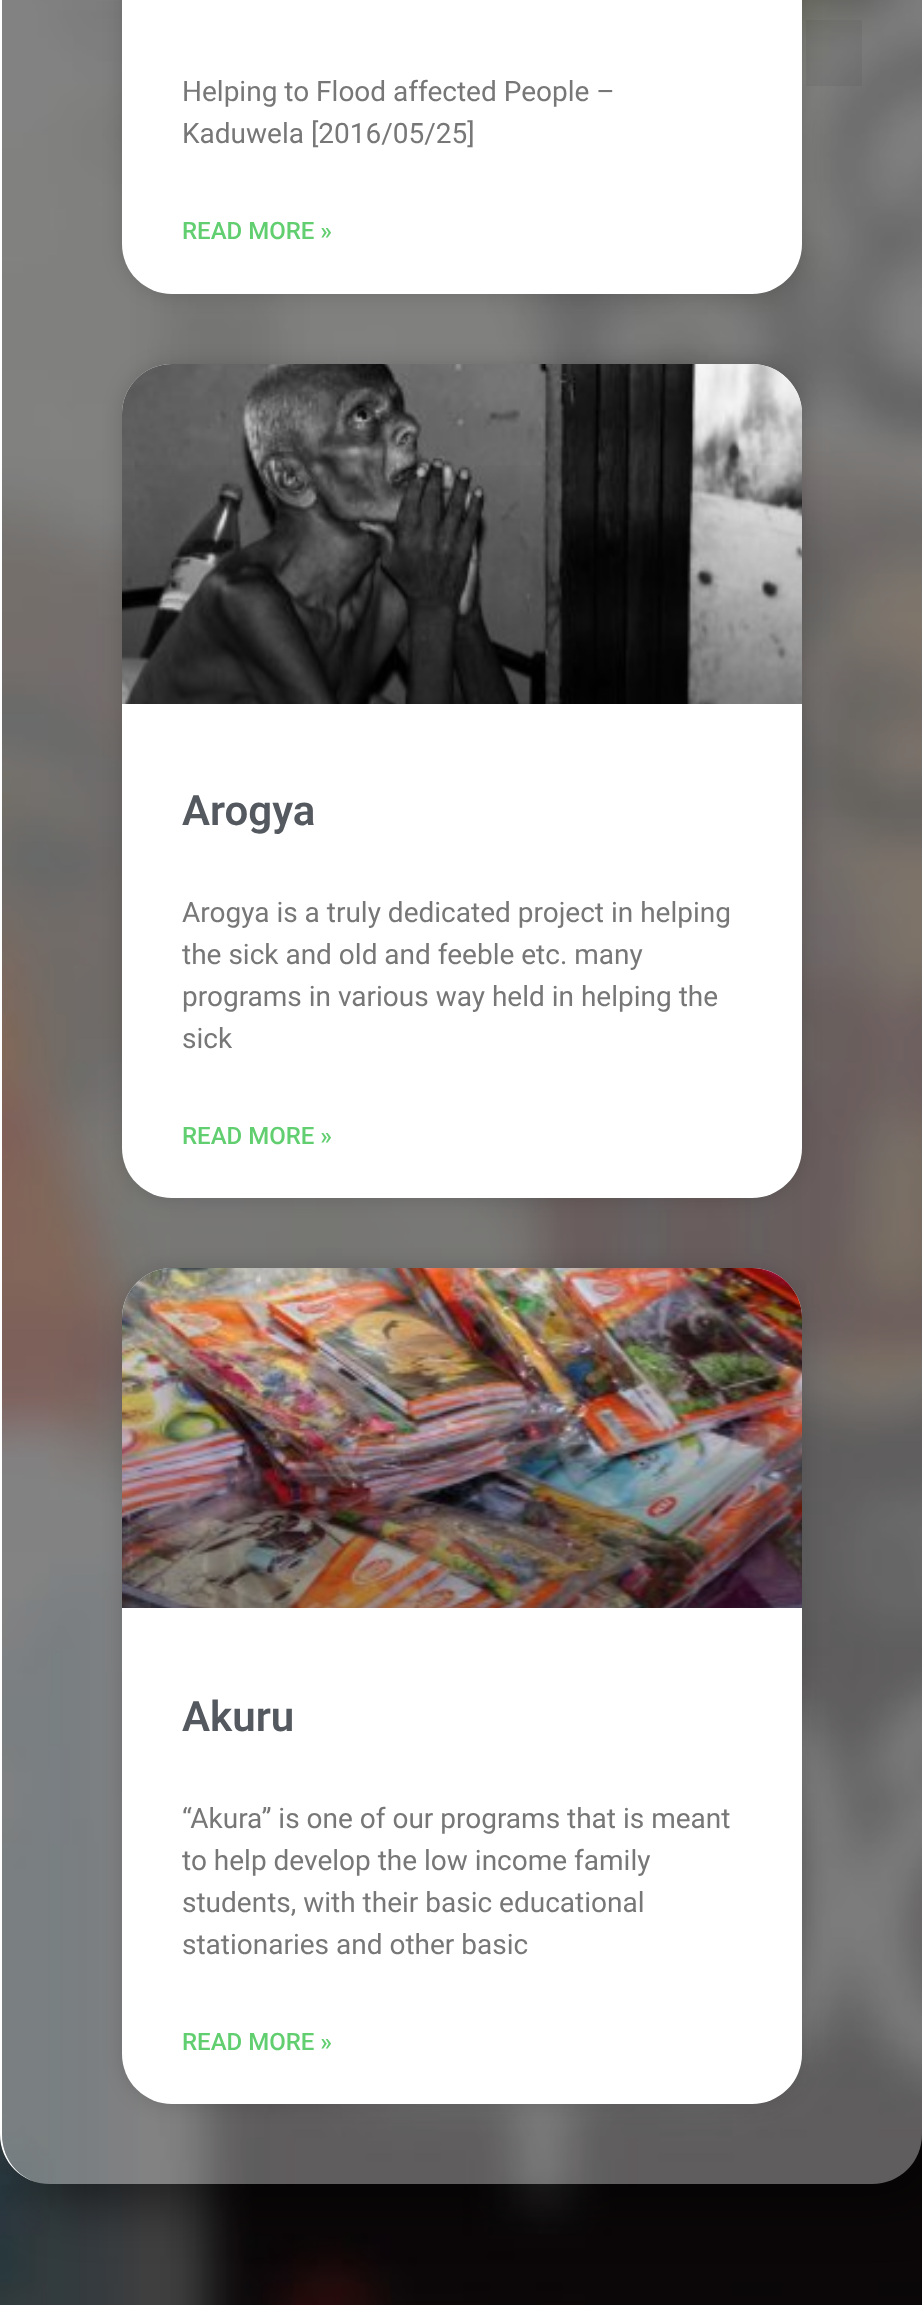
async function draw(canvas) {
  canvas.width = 922
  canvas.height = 2305
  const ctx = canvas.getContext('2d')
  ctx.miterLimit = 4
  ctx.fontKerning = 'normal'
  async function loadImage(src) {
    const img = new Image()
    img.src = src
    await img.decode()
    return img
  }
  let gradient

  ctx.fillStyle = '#fff'
  ctx.fillRect(0, 0, 922, 2305)
  ctx.drawImage(await loadImage('image0.png'), 0, 0, 922, 2305)
  ctx.save()
  ctx.beginPath()
  ctx.moveTo(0, 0)
  ctx.lineTo(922, 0)
  ctx.lineTo(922, 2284)
  ctx.lineTo(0, 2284)
  ctx.closePath()
  ctx.moveTo(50, -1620)
  ctx.lineTo(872, -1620)
  ctx.bezierCurveTo(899.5, -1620, 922, -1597.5, 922, -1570)
  ctx.lineTo(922, 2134)
  ctx.bezierCurveTo(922, 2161.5, 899.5, 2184, 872, 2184)
  ctx.lineTo(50, 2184)
  ctx.bezierCurveTo(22.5, 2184, 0, 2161.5, 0, 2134)
  ctx.lineTo(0, -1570)
  ctx.bezierCurveTo(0, -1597.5, 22.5, -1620, 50, -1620)
  ctx.closePath()
  ctx.clip('evenodd')
  ctx.fillStyle = '#00000080'
  ctx.filter = 'blur(27px)'
  ctx.beginPath()
  ctx.roundRect(34, -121, 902, 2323, 40)
  ctx.fill()
  ctx.filter = 'none'
  ctx.restore()
  ctx.fillStyle = '#ffffff59'
  ctx.beginPath()
  ctx.moveTo(50, -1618)
  ctx.lineTo(872, -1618)
  ctx.bezierCurveTo(900, -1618, 922, -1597, 922, -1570)
  ctx.lineTo(922, 2134)
  ctx.bezierCurveTo(922, 2162, 900, 2184, 872, 2184)
  ctx.lineTo(50, 2184)
  ctx.bezierCurveTo(23, 2184, 2, 2162, 2, 2134)
  ctx.lineTo(2, -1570)
  ctx.bezierCurveTo(2, -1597, 23, -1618, 50, -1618)
  ctx.closePath()
  ctx.fill()
  ctx.fillStyle = '#00000026'
  ctx.filter = 'blur(10px)'
  ctx.beginPath()
  ctx.roundRect(122, -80, 680, 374, 50)
  ctx.fill()
  ctx.filter = 'none'
  ctx.fillStyle = '#0000000d'
  ctx.fillRect(806, 20, 56, 66)
  ctx.fillStyle = '#fff'
  ctx.beginPath()
  ctx.moveTo(50, -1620)
  ctx.lineTo(872, -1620)
  ctx.bezierCurveTo(900, -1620, 922, -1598, 922, -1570)
  ctx.lineTo(922, 2134)
  ctx.bezierCurveTo(922, 2162, 900, 2184, 872, 2184)
  ctx.lineTo(50, 2184)
  ctx.bezierCurveTo(22, 2184, 0, 2162, 0, 2134)
  ctx.lineTo(0, -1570)
  ctx.bezierCurveTo(0, -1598, 22, -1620, 50, -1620)
  ctx.closePath()
  ctx.moveTo(50, -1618)
  ctx.lineTo(872, -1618)
  ctx.bezierCurveTo(900, -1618, 922, -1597, 922, -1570)
  ctx.lineTo(922, 2134)
  ctx.bezierCurveTo(922, 2162, 900, 2184, 872, 2184)
  ctx.lineTo(50, 2184)
  ctx.bezierCurveTo(23, 2184, 2, 2162, 2, 2134)
  ctx.lineTo(2, -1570)
  ctx.bezierCurveTo(2, -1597, 23, -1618, 50, -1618)
  ctx.closePath()
  ctx.fill('evenodd')
  ctx.beginPath()
  ctx.roundRect(122, -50, 680, 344, 50)
  ctx.fill()
  ctx.font = '28px Roboto'
  ctx.fillStyle = '#777'
  ctx.fillText('Helping to Flood affected People –', 182, 101)
  ctx.fillText('Kaduwela [2016/05/25]', 182, 143)
  ctx.font = '500 24px Roboto'
  ctx.fillStyle = '#61ce70'
  ctx.fillText('READ MORE »', 182, 239)
  ctx.fillStyle = '#00000026'
  ctx.filter = 'blur(10px)'
  ctx.beginPath()
  ctx.roundRect(122, 364, 680, 834, 50)
  ctx.fill()
  ctx.filter = 'none'
  ctx.fillStyle = '#fff'
  ctx.beginPath()
  ctx.roundRect(122, 364, 680, 834, 50)
  ctx.fill()
  ctx.drawImage(await loadImage('image1.png'), 122, 364, 680, 340)
  gradient = ctx.createLinearGradient(462, 704, 462, 364)
  gradient.addColorStop(0, '#00000059')
  gradient.addColorStop(0.75, '#00000000')
  ctx.fillStyle = gradient
  ctx.fillRect(122, 465, 680, 239)
  ctx.font = '600 42px Roboto'
  ctx.fillStyle = '#54595f'
  ctx.fillText('Arogya', 182, 825)
  ctx.font = '28px Roboto'
  ctx.fillStyle = '#777'
  ctx.fillText('Arogya is a truly dedicated project in helping', 182, 922)
  ctx.fillText('the sick and old and feeble etc. many', 182, 964)
  ctx.fillText('programs in various way held in helping the', 182, 1006)
  ctx.fillText('sick', 182, 1048)
  ctx.font = '500 24px Roboto'
  ctx.fillStyle = '#61ce70'
  ctx.fillText('READ MORE »', 182, 1144)
  ctx.fillStyle = '#00000026'
  ctx.filter = 'blur(10px)'
  ctx.beginPath()
  ctx.roundRect(122, 1268, 680, 836, 50)
  ctx.fill()
  ctx.filter = 'none'
  ctx.fillStyle = '#fff'
  ctx.beginPath()
  ctx.roundRect(122, 1268, 680, 836, 50)
  ctx.fill()
  ctx.drawImage(await loadImage('image2.png'), 122, 1268, 680, 340)
  gradient = ctx.createLinearGradient(462, 1608, 462, 1268)
  gradient.addColorStop(0, '#00000059')
  gradient.addColorStop(0.75, '#00000000')
  ctx.fillStyle = gradient
  ctx.fillRect(122, 1369, 680, 239)
  ctx.font = '600 42px Roboto'
  ctx.fillStyle = '#54595f'
  ctx.fillText('Akuru', 182, 1731)
  ctx.font = '28px Roboto'
  ctx.fillStyle = '#777'
  ctx.fillText('“Akura” is one of our programs that is meant', 182, 1828)
  ctx.fillText('to help develop the low income family', 182, 1870)
  ctx.fillText('students, with their basic educational', 182, 1912)
  ctx.fillText('stationaries and other basic', 182, 1954)
  ctx.font = '500 24px Roboto'
  ctx.fillStyle = '#61ce70'
  ctx.fillText('READ MORE »', 182, 2050)
}

draw(document.querySelector('canvas'))
